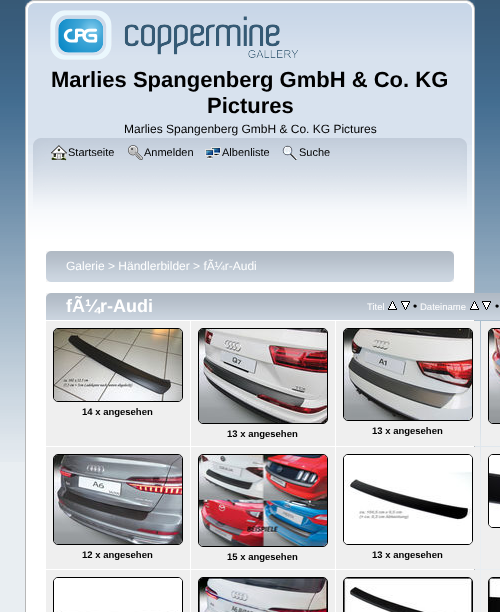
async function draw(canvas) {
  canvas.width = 500
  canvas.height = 612
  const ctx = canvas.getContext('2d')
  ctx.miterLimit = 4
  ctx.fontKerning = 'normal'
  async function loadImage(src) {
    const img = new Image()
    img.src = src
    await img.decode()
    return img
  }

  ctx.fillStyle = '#e9eef2'
  ctx.fillRect(0, 0, 500, 612)
  ctx.drawImage(await loadImage('image0.png'), 0, 0, 500, 462)
  ctx.drawImage(await loadImage('image1.png'), 25, 0, 442, 138)
  ctx.drawImage(await loadImage('image2.png'), 467, 0, 8, 138)
  ctx.drawImage(await loadImage('image3.png'), 50, 10, 248, 50)
  ctx.font = 'bold 22px Liberation Sans'
  ctx.fillStyle = '#000'
  ctx.fillText('Marlies Spangenberg GmbH & Co. KG', 51, 87)
  ctx.fillText('Pictures', 207, 113)
  ctx.font = '12px Liberation Sans'
  ctx.fillText('Marlies Spangenberg GmbH & Co. KG Pictures', 124, 133)
  ctx.drawImage(await loadImage('image4.png'), 25, 138, 435, 110)
  ctx.drawImage(await loadImage('image5.png'), 460, 138, 15, 110)
  ctx.drawImage(await loadImage('image6.png'), 51, 145, 16, 16)
  ctx.font = '11px Liberation Sans'
  ctx.fillText('Startseite', 68, 156)
  ctx.drawImage(await loadImage('image7.png'), 128, 145, 15, 15)
  ctx.fillText('Anmelden', 144, 156)
  ctx.drawImage(await loadImage('image8.png'), 205, 147, 16, 12)
  ctx.fillText('Albenliste', 222, 156)
  ctx.drawImage(await loadImage('image9.png'), 282, 145, 16, 15)
  ctx.fillText('Suche', 299, 156)
  ctx.fillStyle = '#fff'
  ctx.fillRect(26, 248, 448, 364)
  ctx.fillStyle = '#b7b7b7'
  ctx.fillRect(25, 248, 1, 364)
  ctx.fillRect(474, 248, 1, 322)
  ctx.drawImage(await loadImage('image10.png'), 46, 251, 403, 31)
  ctx.drawImage(await loadImage('image11.png'), 449, 251, 5, 31)
  ctx.font = '12px Liberation Sans'
  ctx.fillStyle = '#fff'
  ctx.fillText('Galerie > Händlerbilder > fÃ¼r-Audi', 66, 270)
  ctx.drawImage(await loadImage('image12.png'), 46, 293, 454, 27)
  ctx.font = 'bold 18px Liberation Sans'
  ctx.fillText('fÃ¼r-Audi', 66, 312)
  ctx.font = '9.5px Liberation Sans'
  ctx.fillText('Titel', 367, 310)
  ctx.drawImage(await loadImage('image13.png'), 388, 301, 9, 9)
  ctx.drawImage(await loadImage('image14.png'), 401, 301, 9, 9)
  ctx.font = '12px Liberation Sans'
  ctx.fillStyle = '#000'
  ctx.fillText('•', 413, 310)
  ctx.font = '9.5px Liberation Sans'
  ctx.fillStyle = '#fff'
  ctx.fillText('Dateiname', 420, 310)
  ctx.drawImage(await loadImage('image13.png'), 470, 301, 9, 9)
  ctx.drawImage(await loadImage('image14.png'), 482, 301, 9, 9)
  ctx.font = '12px Liberation Sans'
  ctx.fillStyle = '#000'
  ctx.fillText('•', 495, 310)
  ctx.fillStyle = '#efefef'
  ctx.fillRect(46, 321, 144, 125)
  ctx.beginPath()
  ctx.roundRect(53.5, 328.5, 129, 73, 4.5)
  ctx.strokeStyle = '#000'
  ctx.stroke()
  ctx.drawImage(await loadImage('image15.png'), 54, 329, 128, 72)
  ctx.font = 'bold 9.5px Liberation Sans'
  ctx.fillStyle = '#000'
  ctx.fillText('14 x angesehen', 82, 415)
  ctx.fillStyle = '#efefef'
  ctx.fillRect(481, 321, 19, 125)
  ctx.beginPath()
  ctx.roundRect(488.5, 328.5, 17, 95, 4.5)
  ctx.stroke()
  ctx.drawImage(await loadImage('image16.png'), 489, 329, 11, 94)
  ctx.fillRect(191, 321, 144, 125)
  ctx.beginPath()
  ctx.roundRect(198.5, 328.5, 129, 95, 4.5)
  ctx.stroke()
  ctx.drawImage(await loadImage('image17.png'), 199, 329, 128, 94)
  ctx.fillStyle = '#000'
  ctx.fillText('13 x angesehen', 227, 437)
  ctx.fillStyle = '#efefef'
  ctx.fillRect(336, 321, 144, 125)
  ctx.beginPath()
  ctx.roundRect(343.5, 328.5, 129, 92, 4.5)
  ctx.stroke()
  ctx.drawImage(await loadImage('image18.png'), 344, 329, 128, 91)
  ctx.fillStyle = '#000'
  ctx.fillText('13 x angesehen', 372, 434)
  ctx.fillStyle = '#efefef'
  ctx.fillRect(46, 447, 144, 122)
  ctx.beginPath()
  ctx.roundRect(53.5, 454.5, 129, 90, 4.5)
  ctx.stroke()
  ctx.drawImage(await loadImage('image19.png'), 54, 455, 128, 89)
  ctx.fillStyle = '#000'
  ctx.fillText('12 x angesehen', 82, 558)
  ctx.fillStyle = '#efefef'
  ctx.fillRect(191, 447, 144, 122)
  ctx.beginPath()
  ctx.roundRect(198.5, 454.5, 129, 92, 4.5)
  ctx.stroke()
  ctx.drawImage(await loadImage('image20.png'), 199, 455, 128, 91)
  ctx.fillStyle = '#000'
  ctx.fillText('15 x angesehen', 227, 560)
  ctx.fillStyle = '#efefef'
  ctx.fillRect(336, 447, 144, 122)
  ctx.beginPath()
  ctx.roundRect(343.5, 454.5, 129, 90, 4.5)
  ctx.stroke()
  ctx.drawImage(await loadImage('image21.png'), 344, 455, 128, 89)
  ctx.fillStyle = '#000'
  ctx.fillText('13 x angesehen', 372, 558)
  ctx.fillStyle = '#efefef'
  ctx.fillRect(481, 447, 19, 122)
  ctx.beginPath()
  ctx.roundRect(488.5, 454.5, 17, 73, 4.5)
  ctx.stroke()
  ctx.drawImage(await loadImage('image22.png'), 489, 455, 11, 72)
  ctx.fillRect(46, 570, 144, 42)
  ctx.beginPath()
  ctx.roundRect(53.5, 577.5, 129, 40, 4.5)
  ctx.stroke()
  ctx.drawImage(await loadImage('image23.png'), 54, 578, 128, 34)
  ctx.fillRect(191, 570, 144, 42)
  ctx.beginPath()
  ctx.roundRect(198.5, 577.5, 129, 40, 4.5)
  ctx.stroke()
  ctx.drawImage(await loadImage('image24.png'), 199, 578, 128, 34)
  ctx.fillRect(336, 570, 144, 42)
  ctx.beginPath()
  ctx.roundRect(343.5, 577.5, 129, 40, 4.5)
  ctx.stroke()
  ctx.drawImage(await loadImage('image25.png'), 344, 578, 128, 34)
  ctx.fillRect(481, 570, 19, 42)
  ctx.beginPath()
  ctx.roundRect(488.5, 577.5, 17, 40, 4.5)
  ctx.stroke()
  ctx.drawImage(await loadImage('image26.png'), 489, 578, 11, 34)
}

draw(document.querySelector('canvas'))
